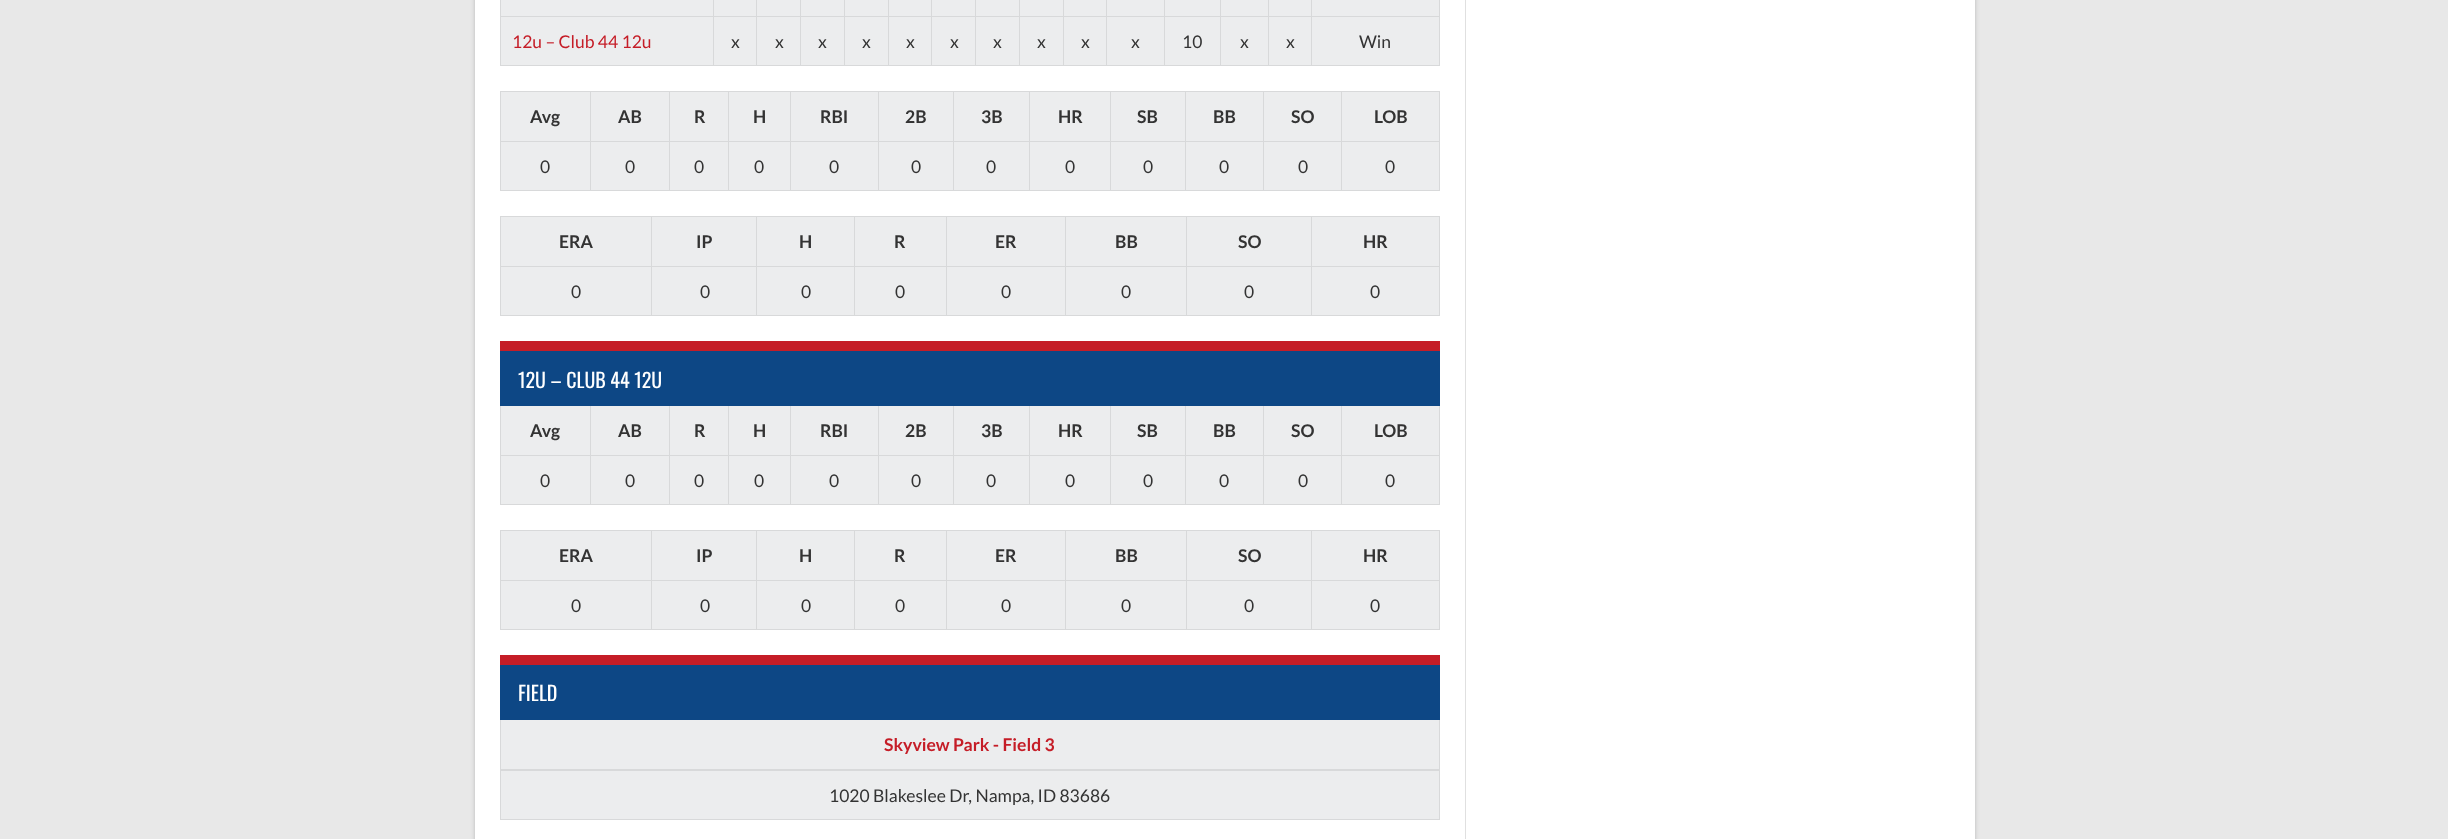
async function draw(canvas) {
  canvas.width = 2448
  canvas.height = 839
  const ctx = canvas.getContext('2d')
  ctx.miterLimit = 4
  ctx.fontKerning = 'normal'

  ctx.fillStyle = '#e8e8e8'
  ctx.fillRect(0, 0, 2448, 839)
  ctx.fillStyle = '#00000033'
  ctx.filter = 'blur(2px)'
  ctx.beginPath()
  ctx.rect(475, -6, 1500, 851)
  ctx.fill()
  ctx.filter = 'none'
  ctx.fillStyle = '#fff'
  ctx.fillRect(475, 0, 1500, 839)
  ctx.fillStyle = '#e0e0e0'
  ctx.beginPath()
  ctx.moveTo(476, -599)
  ctx.lineTo(1465, -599)
  ctx.lineTo(1465, 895)
  ctx.lineTo(1466, 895)
  ctx.lineTo(1466, -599)
  ctx.closePath()
  ctx.fill()
  ctx.fillStyle = '#ecedee'
  ctx.fillRect(501, 0, 938, 65)
  ctx.fillStyle = '#d8d9da'
  ctx.fillRect(1439, 0, 1, 66)
  ctx.fillRect(500, 65, 940, 1)
  ctx.fillRect(500, 0, 1, 66)
  ctx.fillRect(1311, 16, 129, 1)
  ctx.fillRect(1311, 16, 1, 50)
  ctx.fillRect(1268, 16, 45, 1)
  ctx.fillRect(1268, 16, 1, 50)
  ctx.fillRect(1220, 16, 49, 1)
  ctx.fillRect(1220, 16, 1, 50)
  ctx.fillRect(1164, 16, 57, 1)
  ctx.fillRect(1164, 16, 1, 50)
  ctx.fillRect(1106, 16, 59, 1)
  ctx.fillRect(1106, 16, 1, 50)
  ctx.fillRect(1063, 16, 45, 1)
  ctx.fillRect(1063, 16, 1, 50)
  ctx.fillRect(1019, 16, 45, 1)
  ctx.fillRect(1019, 16, 1, 50)
  ctx.fillRect(975, 16, 45, 1)
  ctx.fillRect(975, 16, 1, 50)
  ctx.fillRect(931, 16, 45, 1)
  ctx.fillRect(931, 16, 1, 50)
  ctx.fillRect(888, 16, 45, 1)
  ctx.fillRect(888, 16, 1, 50)
  ctx.fillRect(844, 16, 45, 1)
  ctx.fillRect(844, 16, 1, 50)
  ctx.fillRect(800, 16, 45, 1)
  ctx.fillRect(800, 16, 1, 50)
  ctx.fillRect(756, 16, 45, 1)
  ctx.fillRect(756, 16, 1, 50)
  ctx.fillRect(713, 16, 45, 1)
  ctx.fillRect(713, 16, 1, 50)
  ctx.fillRect(500, 16, 214, 1)
  ctx.fillRect(713, 0, 1, 18)
  ctx.fillRect(756, 0, 1, 18)
  ctx.fillRect(800, 0, 1, 18)
  ctx.fillRect(844, 0, 1, 18)
  ctx.fillRect(888, 0, 1, 18)
  ctx.fillRect(931, 0, 1, 18)
  ctx.fillRect(975, 0, 1, 18)
  ctx.fillRect(1019, 0, 1, 18)
  ctx.fillRect(1063, 0, 1, 18)
  ctx.fillRect(1106, 0, 1, 18)
  ctx.fillRect(1164, 0, 1, 18)
  ctx.fillRect(1220, 0, 1, 18)
  ctx.fillRect(1268, 0, 1, 18)
  ctx.fillRect(1311, 0, 1, 18)
  ctx.font = '17.5px Lato'
  ctx.fillStyle = '#c51d27'
  ctx.fillText('12u – Club 44 12u', 512, 48)
  ctx.fillStyle = '#333'
  ctx.fillText('x', 731, 48)
  ctx.fillText('x', 775, 48)
  ctx.fillText('x', 818, 48)
  ctx.fillText('x', 862, 48)
  ctx.fillText('x', 906, 48)
  ctx.fillText('x', 950, 48)
  ctx.fillText('x', 993, 48)
  ctx.fillText('x', 1037, 48)
  ctx.fillText('x', 1081, 48)
  ctx.fillText('x', 1131, 48)
  ctx.fillText('10', 1182, 48)
  ctx.fillText('x', 1240, 48)
  ctx.fillText('x', 1286, 48)
  ctx.fillText('Win', 1359, 48)
  ctx.fillStyle = '#ecedee'
  ctx.fillRect(501, 92, 938, 98)
  ctx.fillStyle = '#d8d9da'
  ctx.fillRect(500, 91, 940, 1)
  ctx.fillRect(1439, 91, 1, 100)
  ctx.fillRect(500, 190, 940, 1)
  ctx.fillRect(500, 91, 1, 100)
  ctx.font = 'bold 17.5px Lato'
  ctx.fillStyle = '#333'
  ctx.fillText('Avg', 530, 123)
  ctx.fillStyle = '#d8d9da'
  ctx.fillRect(1341, 141, 99, 1)
  ctx.fillRect(1341, 141, 1, 50)
  ctx.fillRect(1263, 141, 80, 1)
  ctx.fillRect(1263, 141, 1, 50)
  ctx.fillRect(1185, 141, 79, 1)
  ctx.fillRect(1185, 141, 1, 50)
  ctx.fillRect(1110, 141, 76, 1)
  ctx.fillRect(1110, 141, 1, 50)
  ctx.fillRect(1029, 141, 82, 1)
  ctx.fillRect(1029, 141, 1, 50)
  ctx.fillRect(953, 141, 77, 1)
  ctx.fillRect(953, 141, 1, 50)
  ctx.fillRect(878, 141, 76, 1)
  ctx.fillRect(878, 141, 1, 50)
  ctx.fillRect(790, 141, 89, 1)
  ctx.fillRect(790, 141, 1, 50)
  ctx.fillRect(728, 141, 63, 1)
  ctx.fillRect(728, 141, 1, 50)
  ctx.fillRect(669, 141, 60, 1)
  ctx.fillRect(669, 141, 1, 50)
  ctx.fillRect(590, 141, 80, 1)
  ctx.fillRect(590, 141, 1, 50)
  ctx.fillRect(500, 141, 91, 1)
  ctx.fillRect(590, 91, 1, 52)
  ctx.fillStyle = '#333'
  ctx.fillText('AB', 618, 123)
  ctx.fillStyle = '#d8d9da'
  ctx.fillRect(669, 91, 1, 52)
  ctx.fillStyle = '#333'
  ctx.fillText('R', 694, 123)
  ctx.fillStyle = '#d8d9da'
  ctx.fillRect(728, 91, 1, 52)
  ctx.fillStyle = '#333'
  ctx.fillText('H', 753, 123)
  ctx.fillStyle = '#d8d9da'
  ctx.fillRect(790, 91, 1, 52)
  ctx.fillStyle = '#333'
  ctx.fillText('RBI', 820, 123)
  ctx.fillStyle = '#d8d9da'
  ctx.fillRect(878, 91, 1, 52)
  ctx.fillStyle = '#333'
  ctx.fillText('2B', 905, 123)
  ctx.fillStyle = '#d8d9da'
  ctx.fillRect(953, 91, 1, 52)
  ctx.fillStyle = '#333'
  ctx.fillText('3B', 981, 123)
  ctx.fillStyle = '#d8d9da'
  ctx.fillRect(1029, 91, 1, 52)
  ctx.fillStyle = '#333'
  ctx.fillText('HR', 1058, 123)
  ctx.fillStyle = '#d8d9da'
  ctx.fillRect(1110, 91, 1, 52)
  ctx.fillStyle = '#333'
  ctx.fillText('SB', 1137, 123)
  ctx.fillStyle = '#d8d9da'
  ctx.fillRect(1185, 91, 1, 52)
  ctx.fillStyle = '#333'
  ctx.fillText('BB', 1213, 123)
  ctx.fillStyle = '#d8d9da'
  ctx.fillRect(1263, 91, 1, 52)
  ctx.fillStyle = '#333'
  ctx.fillText('SO', 1291, 123)
  ctx.fillStyle = '#d8d9da'
  ctx.fillRect(1341, 91, 1, 52)
  ctx.fillStyle = '#333'
  ctx.fillText('LOB', 1374, 123)
  ctx.font = '17.5px Lato'
  ctx.fillText('0', 540, 173)
  ctx.fillText('0', 625, 173)
  ctx.fillText('0', 694, 173)
  ctx.fillText('0', 754, 173)
  ctx.fillText('0', 829, 173)
  ctx.fillText('0', 911, 173)
  ctx.fillText('0', 986, 173)
  ctx.fillText('0', 1065, 173)
  ctx.fillText('0', 1143, 173)
  ctx.fillText('0', 1219, 173)
  ctx.fillText('0', 1298, 173)
  ctx.fillText('0', 1385, 173)
  ctx.fillStyle = '#ecedee'
  ctx.fillRect(501, 217, 938, 98)
  ctx.fillStyle = '#d8d9da'
  ctx.fillRect(500, 216, 940, 1)
  ctx.fillRect(1439, 216, 1, 100)
  ctx.fillRect(500, 315, 940, 1)
  ctx.fillRect(500, 216, 1, 100)
  ctx.font = 'bold 17.5px Lato'
  ctx.fillStyle = '#333'
  ctx.fillText('ERA', 559, 248)
  ctx.fillStyle = '#d8d9da'
  ctx.fillRect(1311, 266, 129, 1)
  ctx.fillRect(1311, 266, 1, 50)
  ctx.fillRect(1186, 266, 127, 1)
  ctx.fillRect(1186, 266, 1, 50)
  ctx.fillRect(1065, 266, 123, 1)
  ctx.fillRect(1065, 266, 1, 50)
  ctx.fillRect(946, 266, 120, 1)
  ctx.fillRect(946, 266, 1, 50)
  ctx.fillRect(854, 266, 94, 1)
  ctx.fillRect(854, 266, 1, 50)
  ctx.fillRect(756, 266, 99, 1)
  ctx.fillRect(756, 266, 1, 50)
  ctx.fillRect(651, 266, 107, 1)
  ctx.fillRect(651, 266, 1, 50)
  ctx.fillRect(500, 266, 153, 1)
  ctx.fillRect(651, 216, 1, 52)
  ctx.fillStyle = '#333'
  ctx.fillText('IP', 696, 248)
  ctx.fillStyle = '#d8d9da'
  ctx.fillRect(756, 216, 1, 52)
  ctx.fillStyle = '#333'
  ctx.fillText('H', 799, 248)
  ctx.fillStyle = '#d8d9da'
  ctx.fillRect(854, 216, 1, 52)
  ctx.fillStyle = '#333'
  ctx.fillText('R', 894, 248)
  ctx.fillStyle = '#d8d9da'
  ctx.fillRect(946, 216, 1, 52)
  ctx.fillStyle = '#333'
  ctx.fillText('ER', 995, 248)
  ctx.fillStyle = '#d8d9da'
  ctx.fillRect(1065, 216, 1, 52)
  ctx.fillStyle = '#333'
  ctx.fillText('BB', 1115, 248)
  ctx.fillStyle = '#d8d9da'
  ctx.fillRect(1186, 216, 1, 52)
  ctx.fillStyle = '#333'
  ctx.fillText('SO', 1238, 248)
  ctx.fillStyle = '#d8d9da'
  ctx.fillRect(1311, 216, 1, 52)
  ctx.fillStyle = '#333'
  ctx.fillText('HR', 1363, 248)
  ctx.font = '17.5px Lato'
  ctx.fillText('0', 571, 298)
  ctx.fillText('0', 700, 298)
  ctx.fillText('0', 801, 298)
  ctx.fillText('0', 895, 298)
  ctx.fillText('0', 1001, 298)
  ctx.fillText('0', 1121, 298)
  ctx.fillText('0', 1244, 298)
  ctx.fillText('0', 1370, 298)
  ctx.fillStyle = '#d8d9da'
  ctx.fillRect(1439, 405, 1, 100)
  ctx.fillRect(500, 504, 940, 1)
  ctx.fillRect(500, 405, 1, 100)
  ctx.fillStyle = '#ecedee'
  ctx.fillRect(501, 406, 938, 98)
  ctx.fillStyle = '#d8d9da'
  ctx.fillRect(1341, 455, 99, 1)
  ctx.fillRect(1341, 455, 1, 50)
  ctx.fillRect(1263, 455, 80, 1)
  ctx.fillRect(1263, 455, 1, 50)
  ctx.fillRect(1185, 455, 79, 1)
  ctx.fillRect(1185, 455, 1, 50)
  ctx.fillRect(1110, 455, 76, 1)
  ctx.fillRect(1110, 455, 1, 50)
  ctx.fillRect(1029, 455, 82, 1)
  ctx.fillRect(1029, 455, 1, 50)
  ctx.fillRect(953, 455, 77, 1)
  ctx.fillRect(953, 455, 1, 50)
  ctx.fillRect(878, 455, 76, 1)
  ctx.fillRect(878, 455, 1, 50)
  ctx.fillRect(790, 455, 89, 1)
  ctx.fillRect(790, 455, 1, 50)
  ctx.fillRect(728, 455, 63, 1)
  ctx.fillRect(728, 455, 1, 50)
  ctx.fillRect(669, 455, 60, 1)
  ctx.fillRect(669, 455, 1, 50)
  ctx.fillRect(590, 455, 80, 1)
  ctx.fillRect(590, 455, 1, 50)
  ctx.fillRect(500, 455, 91, 1)
  ctx.fillRect(590, 405, 1, 51)
  ctx.fillRect(669, 405, 1, 51)
  ctx.fillRect(728, 405, 1, 51)
  ctx.fillRect(790, 405, 1, 51)
  ctx.fillRect(878, 405, 1, 51)
  ctx.fillRect(953, 405, 1, 51)
  ctx.fillRect(1029, 405, 1, 51)
  ctx.fillRect(1110, 405, 1, 51)
  ctx.fillRect(1185, 405, 1, 51)
  ctx.fillRect(1263, 405, 1, 51)
  ctx.fillRect(1341, 405, 1, 51)
  ctx.fillStyle = '#0d4785'
  ctx.fillRect(500, 351, 940, 55)
  ctx.fillStyle = '#c51d27'
  ctx.fillRect(500, 341, 940, 10)
  ctx.font = '20px Oswald'
  ctx.fillStyle = '#fff'
  ctx.fillText('12U – CLUB 44 12U', 518, 388)
  ctx.font = 'bold 17.5px Lato'
  ctx.fillStyle = '#333'
  ctx.fillText('Avg', 530, 437)
  ctx.fillText('AB', 618, 437)
  ctx.fillText('R', 694, 437)
  ctx.fillText('H', 753, 437)
  ctx.fillText('RBI', 820, 437)
  ctx.fillText('2B', 905, 437)
  ctx.fillText('3B', 981, 437)
  ctx.fillText('HR', 1058, 437)
  ctx.fillText('SB', 1137, 437)
  ctx.fillText('BB', 1213, 437)
  ctx.fillText('SO', 1291, 437)
  ctx.fillText('LOB', 1374, 437)
  ctx.font = '17.5px Lato'
  ctx.fillText('0', 540, 487)
  ctx.fillText('0', 625, 487)
  ctx.fillText('0', 694, 487)
  ctx.fillText('0', 754, 487)
  ctx.fillText('0', 829, 487)
  ctx.fillText('0', 911, 487)
  ctx.fillText('0', 986, 487)
  ctx.fillText('0', 1065, 487)
  ctx.fillText('0', 1143, 487)
  ctx.fillText('0', 1219, 487)
  ctx.fillText('0', 1298, 487)
  ctx.fillText('0', 1385, 487)
  ctx.fillStyle = '#ecedee'
  ctx.fillRect(501, 531, 938, 98)
  ctx.fillStyle = '#d8d9da'
  ctx.fillRect(500, 530, 940, 1)
  ctx.fillRect(1439, 530, 1, 100)
  ctx.fillRect(500, 629, 940, 1)
  ctx.fillRect(500, 530, 1, 100)
  ctx.font = 'bold 17.5px Lato'
  ctx.fillStyle = '#333'
  ctx.fillText('ERA', 559, 562)
  ctx.fillStyle = '#d8d9da'
  ctx.fillRect(1311, 580, 129, 1)
  ctx.fillRect(1311, 580, 1, 50)
  ctx.fillRect(1186, 580, 127, 1)
  ctx.fillRect(1186, 580, 1, 50)
  ctx.fillRect(1065, 580, 123, 1)
  ctx.fillRect(1065, 580, 1, 50)
  ctx.fillRect(946, 580, 120, 1)
  ctx.fillRect(946, 580, 1, 50)
  ctx.fillRect(854, 580, 94, 1)
  ctx.fillRect(854, 580, 1, 50)
  ctx.fillRect(756, 580, 99, 1)
  ctx.fillRect(756, 580, 1, 50)
  ctx.fillRect(651, 580, 107, 1)
  ctx.fillRect(651, 580, 1, 50)
  ctx.fillRect(500, 580, 153, 1)
  ctx.fillRect(651, 530, 1, 51)
  ctx.fillStyle = '#333'
  ctx.fillText('IP', 696, 562)
  ctx.fillStyle = '#d8d9da'
  ctx.fillRect(756, 530, 1, 51)
  ctx.fillStyle = '#333'
  ctx.fillText('H', 799, 562)
  ctx.fillStyle = '#d8d9da'
  ctx.fillRect(854, 530, 1, 51)
  ctx.fillStyle = '#333'
  ctx.fillText('R', 894, 562)
  ctx.fillStyle = '#d8d9da'
  ctx.fillRect(946, 530, 1, 51)
  ctx.fillStyle = '#333'
  ctx.fillText('ER', 995, 562)
  ctx.fillStyle = '#d8d9da'
  ctx.fillRect(1065, 530, 1, 51)
  ctx.fillStyle = '#333'
  ctx.fillText('BB', 1115, 562)
  ctx.fillStyle = '#d8d9da'
  ctx.fillRect(1186, 530, 1, 51)
  ctx.fillStyle = '#333'
  ctx.fillText('SO', 1238, 562)
  ctx.fillStyle = '#d8d9da'
  ctx.fillRect(1311, 530, 1, 51)
  ctx.fillStyle = '#333'
  ctx.fillText('HR', 1363, 562)
  ctx.font = '17.5px Lato'
  ctx.fillText('0', 571, 612)
  ctx.fillText('0', 700, 612)
  ctx.fillText('0', 801, 612)
  ctx.fillText('0', 895, 612)
  ctx.fillText('0', 1001, 612)
  ctx.fillText('0', 1121, 612)
  ctx.fillText('0', 1244, 612)
  ctx.fillText('0', 1370, 612)
  ctx.fillStyle = '#d8d9da'
  ctx.fillRect(1439, 719, 1, 101)
  ctx.fillRect(500, 819, 940, 1)
  ctx.fillRect(500, 719, 1, 101)
  ctx.fillStyle = '#0d4785'
  ctx.fillRect(500, 665, 940, 55)
  ctx.fillStyle = '#c51d27'
  ctx.fillRect(500, 655, 940, 10)
  ctx.font = '20px Oswald'
  ctx.fillStyle = '#fff'
  ctx.fillText('FIELD', 518, 701)
  ctx.fillStyle = '#ecedee'
  ctx.fillRect(501, 720, 938, 99)
  ctx.font = 'bold 17.5px Lato'
  ctx.fillStyle = '#c51d27'
  ctx.fillText('Skyview Park - Field 3', 884, 751)
  ctx.fillStyle = '#d8d9da'
  ctx.fillRect(500, 769, 940, 2)
  ctx.font = '17.5px Lato'
  ctx.fillStyle = '#333'
  ctx.fillText('1020 Blakeslee Dr, Nampa, ID 83686', 829, 802)
}

draw(document.querySelector('canvas'))
